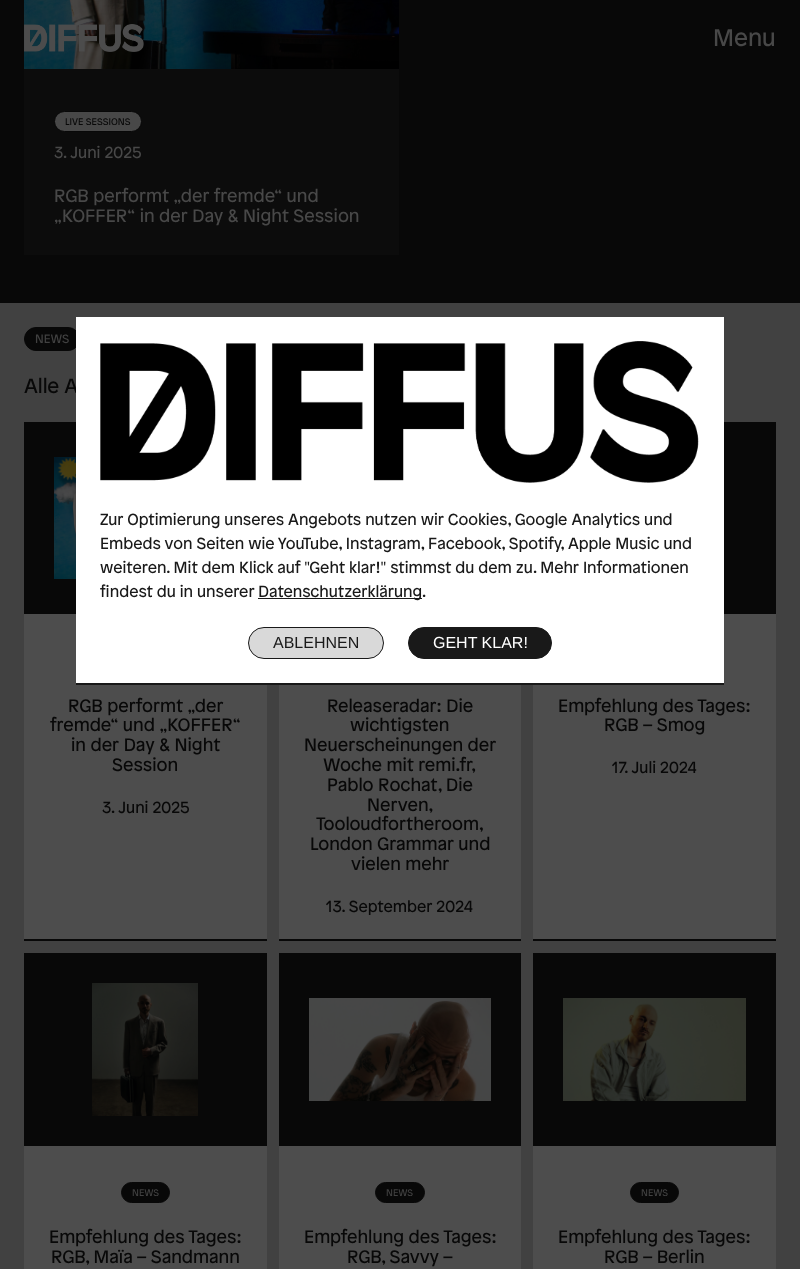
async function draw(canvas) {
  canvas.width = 800
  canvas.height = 1269
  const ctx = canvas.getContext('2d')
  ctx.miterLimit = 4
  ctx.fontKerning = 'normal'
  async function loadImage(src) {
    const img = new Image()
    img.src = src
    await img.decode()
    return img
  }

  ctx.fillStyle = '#414141'
  ctx.fillRect(0, 0, 800, 1269)
  ctx.fillStyle = '#080808'
  ctx.fillRect(0, 0, 800, 303)
  ctx.drawImage(await loadImage('image1.png'), 24, 0, 375, 69)
  ctx.drawImage(await loadImage('image0.png'), 24, 24, 120, 28)
  ctx.font = '24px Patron'
  ctx.fillStyle = '#484848'
  ctx.fillText('Menu', 713, 46)
  ctx.fillStyle = '#0c0c0c'
  ctx.fillRect(24, 69, 375, 186)
  ctx.fillStyle = '#484848'
  ctx.beginPath()
  ctx.roundRect(54.5, 111.5, 87, 20, 10)
  ctx.fill()
  ctx.strokeStyle = '#080808'
  ctx.stroke()
  ctx.font = '9.5px Patron'
  ctx.fillStyle = '#080808'
  ctx.fillText('LIVE SESSIONS', 65, 125)
  ctx.font = '16px Patron'
  ctx.fillStyle = '#484848'
  ctx.fillText('3. Juni 2025', 54, 158)
  ctx.font = '18px Patron'
  ctx.fillText('RGB performt „der fremde“ und', 54, 202)
  ctx.fillText('„KOFFER“ in der Day & Night Session', 54, 222)
  ctx.fillStyle = '#080808'
  ctx.beginPath()
  ctx.roundRect(24.5, 327.5, 55, 23, 11.5)
  ctx.fill()
  ctx.stroke()
  ctx.font = '12px Patron'
  ctx.fillStyle = '#414141'
  ctx.fillText('NEWS', 35, 343)
  ctx.font = '20.5px Patron'
  ctx.fillStyle = '#080808'
  ctx.fillText('Alle A', 24, 393)
  ctx.fillStyle = '#4d4d4d'
  ctx.fillRect(24, 614, 243, 325)
  ctx.fillStyle = '#080808'
  ctx.fillRect(24, 939, 243, 2)
  ctx.fillRect(24, 422, 52, 192)
  ctx.drawImage(await loadImage('image2.png'), 54, 457, 22, 122)
  ctx.font = '18px Patron'
  ctx.fillText('RGB performt „der', 68, 712)
  ctx.fillText('fremde“ und „KOFFER“', 50, 731)
  ctx.fillText('in der Day & Night', 71, 751)
  ctx.fillText('Session', 112, 771)
  ctx.font = '16px Patron'
  ctx.fillText('3. Juni 2025', 102, 813)
  ctx.fillStyle = '#4d4d4d'
  ctx.fillRect(279, 685, 242, 254)
  ctx.fillStyle = '#080808'
  ctx.fillRect(279, 939, 242, 2)
  ctx.font = '18px Patron'
  ctx.fillText('Releaseradar: Die', 327, 712)
  ctx.fillText('wichtigsten', 350, 731)
  ctx.fillText('Neuerscheinungen der', 304, 751)
  ctx.fillText('Woche mit remi.fr,', 323, 771)
  ctx.fillText('Pablo Rochat, Die', 327, 791)
  ctx.fillText('Nerven,', 367, 811)
  ctx.fillText('Tooloudfortheroom,', 316, 830)
  ctx.fillText('London Grammar und', 310, 850)
  ctx.fillText('vielen mehr', 351, 870)
  ctx.font = '16px Patron'
  ctx.fillText('13. September 2024', 326, 912)
  ctx.fillStyle = '#4d4d4d'
  ctx.fillRect(533, 614, 243, 325)
  ctx.fillStyle = '#080808'
  ctx.fillRect(533, 939, 243, 2)
  ctx.fillRect(724, 422, 52, 192)
  ctx.font = '18px Patron'
  ctx.fillText('Empfehlung des Tages:', 558, 712)
  ctx.fillText('RGB – Smog', 604, 731)
  ctx.font = '16px Patron'
  ctx.fillText('17. Juli 2024', 612, 773)
  ctx.fillStyle = '#4d4d4d'
  ctx.fillRect(24, 1146, 243, 123)
  ctx.fillStyle = '#080808'
  ctx.fillRect(24, 953, 243, 193)
  ctx.drawImage(await loadImage('image3.png'), 92, 983, 106, 133)
  ctx.beginPath()
  ctx.roundRect(121.5, 1182.5, 48, 20, 10)
  ctx.fill()
  ctx.stroke()
  ctx.font = '9.5px Patron'
  ctx.fillStyle = '#414141'
  ctx.fillText('NEWS', 132, 1196)
  ctx.font = '18px Patron'
  ctx.fillStyle = '#080808'
  ctx.fillText('Empfehlung des Tages:', 49, 1243)
  ctx.fillText('RGB, Maïa – Sandmann', 51, 1263)
  ctx.fillStyle = '#4d4d4d'
  ctx.fillRect(279, 1146, 242, 123)
  ctx.fillStyle = '#080808'
  ctx.fillRect(279, 953, 242, 193)
  ctx.drawImage(await loadImage('image4.png'), 309, 998, 182, 103)
  ctx.beginPath()
  ctx.roundRect(375.5, 1182.5, 49, 20, 10)
  ctx.fill()
  ctx.stroke()
  ctx.font = '9.5px Patron'
  ctx.fillStyle = '#414141'
  ctx.fillText('NEWS', 386, 1196)
  ctx.font = '18px Patron'
  ctx.fillStyle = '#080808'
  ctx.fillText('Empfehlung des Tages:', 304, 1243)
  ctx.fillText('RGB, Savvy –', 347, 1263)
  ctx.fillStyle = '#4d4d4d'
  ctx.fillRect(533, 1146, 243, 123)
  ctx.fillStyle = '#080808'
  ctx.fillRect(533, 953, 243, 193)
  ctx.drawImage(await loadImage('image5.png'), 563, 998, 183, 103)
  ctx.beginPath()
  ctx.roundRect(630.5, 1182.5, 48, 20, 10)
  ctx.fill()
  ctx.stroke()
  ctx.font = '9.5px Patron'
  ctx.fillStyle = '#414141'
  ctx.fillText('NEWS', 641, 1196)
  ctx.font = '18px Patron'
  ctx.fillStyle = '#080808'
  ctx.fillText('Empfehlung des Tages:', 558, 1243)
  ctx.fillText('RGB – Berlin', 604, 1263)
  ctx.fillStyle = '#fff'
  ctx.fillRect(76, 317, 648, 366)
  ctx.fillStyle = '#191919'
  ctx.fillRect(76, 683, 648, 2)
  ctx.drawImage(await loadImage('image6.png'), 100, 341, 599, 142)
  ctx.font = '16px Patron'
  ctx.fillText('Zur Optimierung unseres Angebots nutzen wir Cookies, Google Analytics und', 100, 525)
  ctx.fillText('Embeds von Seiten wie YouTube, Instagram, Facebook, Spotify, Apple Music und', 100, 549)
  ctx.fillText('weiteren. Mit dem Klick auf "Geht klar!" stimmst du dem zu. Mehr Informationen', 100, 573)
  ctx.fillText('findest du in unserer', 100, 597)
  ctx.fillRect(258, 598, 164, 1)
  ctx.fillText('Datenschutzerklärung.', 258, 597)
  ctx.fillStyle = '#d9d9d9'
  ctx.beginPath()
  ctx.roundRect(248.5, 627.5, 135, 31, 15.5)
  ctx.fill()
  ctx.strokeStyle = '#191919'
  ctx.stroke()
  ctx.font = '16px Liberation Sans'
  ctx.fillStyle = '#191919'
  ctx.fillText('ABLEHNEN', 273, 648)
  ctx.beginPath()
  ctx.roundRect(408.5, 627.5, 143, 31, 15.5)
  ctx.fill()
  ctx.stroke()
  ctx.fillStyle = '#fff'
  ctx.fillText('GEHT KLAR!', 433, 648)
}

draw(document.querySelector('canvas'))
